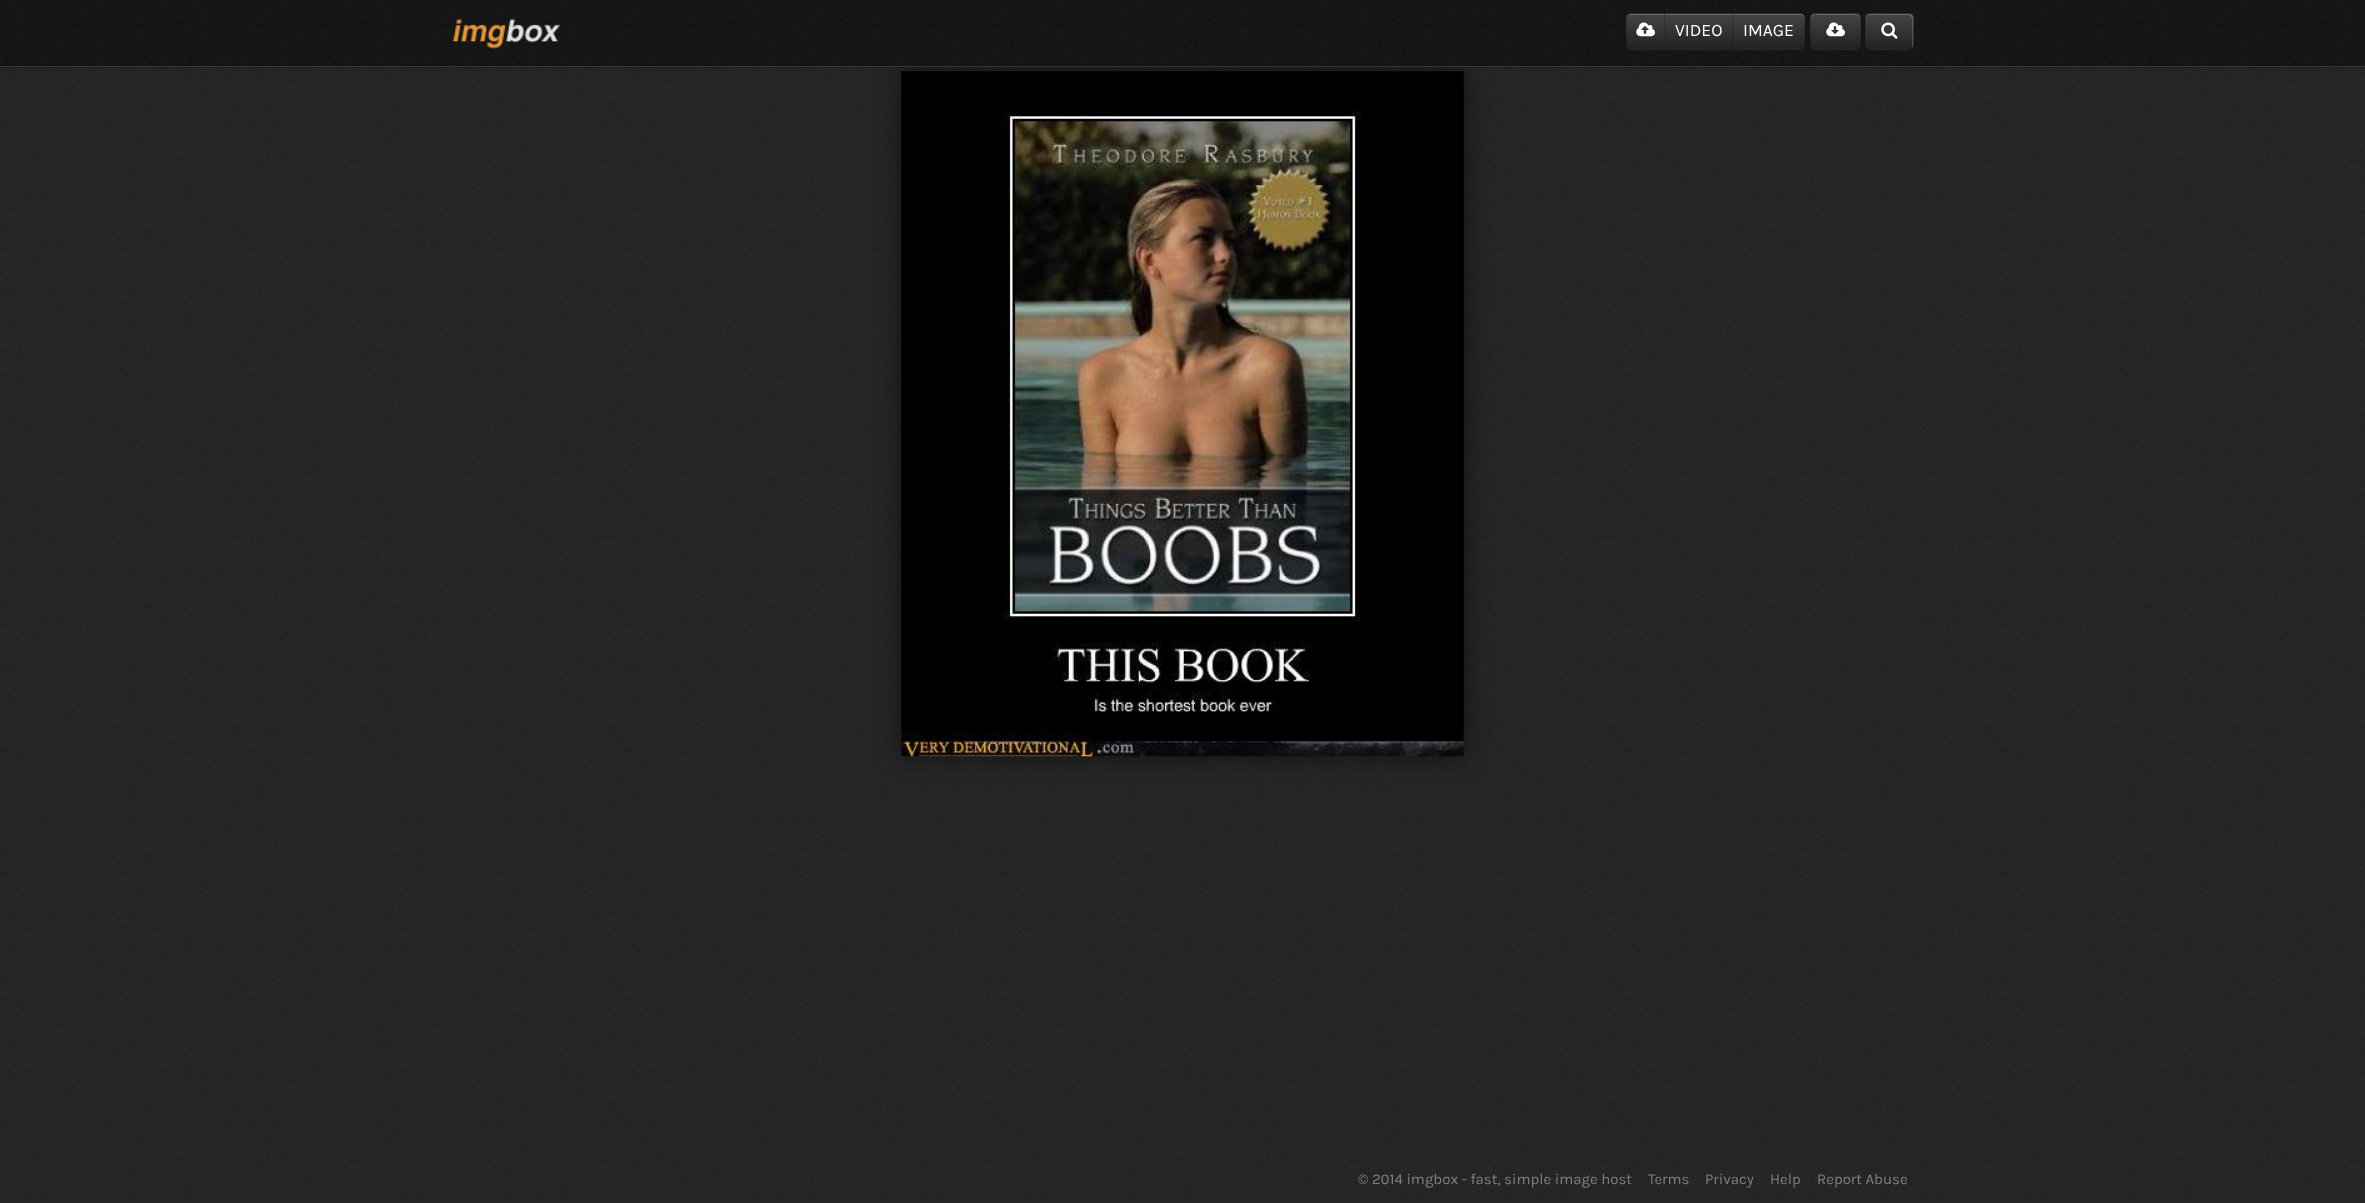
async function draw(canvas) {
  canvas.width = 2365
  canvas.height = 1203
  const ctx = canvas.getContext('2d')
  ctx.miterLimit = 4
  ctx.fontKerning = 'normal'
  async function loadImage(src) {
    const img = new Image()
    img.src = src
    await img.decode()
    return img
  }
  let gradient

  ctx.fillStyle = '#262626'
  ctx.fillRect(0, 0, 2365, 1203)
  ctx.drawImage(await loadImage('image0.png'), 0, 67, 2365, 1134)
  ctx.fillStyle = '#111'
  ctx.filter = 'blur(12.5px)'
  ctx.beginPath()
  ctx.rect(901, 71, 563, 685)
  ctx.fill()
  ctx.filter = 'none'
  ctx.drawImage(await loadImage('image1.png'), 0, 0, 2365, 68)
  ctx.fillStyle = '#373737'
  ctx.fillRect(0, 66, 2365, 1)
  ctx.drawImage(await loadImage('image2.png'), 452, 18, 108, 31)
  ctx.fillStyle = '#363636'
  ctx.beginPath()
  ctx.roundRect(1626, 13, 39, 37, [5, 0, 0, 5])
  ctx.fill()
  ctx.save()
  ctx.beginPath()
  ctx.roundRect(1626, 13, 39, 37, [5, 0, 0, 5])
  ctx.clip()
  gradient = ctx.createLinearGradient(1646, 14, 1646, 49)
  gradient.addColorStop(0, '#444')
  gradient.addColorStop(1, '#222')
  ctx.fillStyle = gradient
  ctx.fillRect(1626, 14, 38, 35)
  ctx.restore()
  ctx.fillStyle = '#696969'
  ctx.beginPath()
  ctx.moveTo(1631, 15)
  ctx.lineTo(1664, 15)
  ctx.lineTo(1664, 14)
  ctx.lineTo(1632, 14)
  ctx.bezierCurveTo(1630, 14, 1628, 16, 1628, 18)
  ctx.lineTo(1628, 19)
  ctx.bezierCurveTo(1628, 17, 1629, 15, 1631, 15)
  ctx.closePath()
  ctx.fill()
  ctx.fillStyle = '#0000001a'
  ctx.beginPath()
  ctx.moveTo(1631, 12.5)
  ctx.bezierCurveTo(1630, 12.5, 1628.5, 13, 1627.5, 14)
  ctx.lineTo(1628.5, 15)
  ctx.bezierCurveTo(1629, 14.5, 1630, 14, 1631, 14)
  ctx.lineTo(1663.5, 14)
  ctx.lineTo(1665, 12.5)
  ctx.closePath()
  ctx.fill()
  ctx.fillStyle = '#00000040'
  ctx.beginPath()
  ctx.moveTo(1665, 50)
  ctx.lineTo(1664, 49)
  ctx.lineTo(1631, 49)
  ctx.bezierCurveTo(1630, 49, 1629, 48.5, 1628.5, 48)
  ctx.lineTo(1627.5, 48.5)
  ctx.bezierCurveTo(1628.5, 49.5, 1630, 50, 1631, 50)
  ctx.closePath()
  ctx.fill()
  ctx.fillStyle = '#0000001a'
  ctx.beginPath()
  ctx.moveTo(1626, 16)
  ctx.lineTo(1627.5, 14)
  ctx.lineTo(1628.5, 15)
  ctx.bezierCurveTo(1628, 15.5, 1627.5, 16.5, 1627.5, 17.5)
  ctx.lineTo(1627.5, 45)
  ctx.bezierCurveTo(1627.5, 46, 1628, 47, 1628.5, 48)
  ctx.lineTo(1627.5, 48.5)
  ctx.lineTo(1626, 46.5)
  ctx.closePath()
  ctx.fill()
  ctx.drawImage(await loadImage('image3.png'), 1636, 22, 19, 15)
  ctx.fillStyle = '#363636'
  ctx.fillRect(1664, 13, 69, 37)
  gradient = ctx.createLinearGradient(1699, 14, 1699, 49)
  gradient.addColorStop(0, '#444')
  gradient.addColorStop(1, '#222')
  ctx.fillStyle = gradient
  ctx.fillRect(1664, 14, 69, 35)
  ctx.fillStyle = '#696969'
  ctx.fillRect(1665, 14, 68, 1)
  ctx.fillStyle = '#0000001a'
  ctx.beginPath()
  ctx.moveTo(1664, 12)
  ctx.lineTo(1734, 12)
  ctx.lineTo(1732, 14)
  ctx.lineTo(1665, 14)
  ctx.closePath()
  ctx.fill()
  ctx.beginPath()
  ctx.moveTo(1734, 12.5)
  ctx.lineTo(1734, 50)
  ctx.lineTo(1732.5, 49)
  ctx.lineTo(1732.5, 14)
  ctx.closePath()
  ctx.fill()
  ctx.fillStyle = '#282828'
  ctx.beginPath()
  ctx.moveTo(1734, 50)
  ctx.lineTo(1664, 50)
  ctx.lineTo(1665, 49)
  ctx.lineTo(1732, 49)
  ctx.closePath()
  ctx.fill()
  ctx.fillStyle = '#0000001a'
  ctx.beginPath()
  ctx.moveTo(1664, 50)
  ctx.lineTo(1664, 12.5)
  ctx.lineTo(1665, 14)
  ctx.lineTo(1665, 49)
  ctx.closePath()
  ctx.fill()
  ctx.font = '17.5px Karla'
  ctx.fillStyle = '#fff'
  ctx.fillText('VIDEO', 1675, 36)
  ctx.fillStyle = '#363636'
  ctx.beginPath()
  ctx.roundRect(1733, 13, 72, 37, [0, 5, 5, 0])
  ctx.fill()
  ctx.save()
  ctx.beginPath()
  ctx.roundRect(1733, 13, 72, 37, [0, 5, 5, 0])
  ctx.clip()
  gradient = ctx.createLinearGradient(1769, 14, 1769, 49)
  gradient.addColorStop(0, '#444')
  gradient.addColorStop(1, '#222')
  ctx.fillStyle = gradient
  ctx.fillRect(1733, 14, 72, 35)
  ctx.restore()
  ctx.fillStyle = '#696969'
  ctx.beginPath()
  ctx.moveTo(1734, 15)
  ctx.lineTo(1800, 15)
  ctx.bezierCurveTo(1802, 15, 1804, 17, 1804, 19)
  ctx.lineTo(1804, 18)
  ctx.bezierCurveTo(1804, 16, 1802, 14, 1800, 14)
  ctx.lineTo(1734, 14)
  ctx.closePath()
  ctx.fill()
  ctx.fillStyle = '#0000001a'
  ctx.beginPath()
  ctx.moveTo(1734, 14)
  ctx.lineTo(1732, 12)
  ctx.lineTo(1802, 12)
  ctx.lineTo(1804, 14)
  ctx.lineTo(1803, 15)
  ctx.lineTo(1800, 14)
  ctx.closePath()
  ctx.fill()
  ctx.beginPath()
  ctx.moveTo(1805, 45)
  ctx.lineTo(1805, 18)
  ctx.bezierCurveTo(1805, 16.5, 1804.5, 15, 1803.5, 14)
  ctx.lineTo(1802.5, 15)
  ctx.bezierCurveTo(1803.5, 15.5, 1804, 16.5, 1804, 18)
  ctx.lineTo(1804, 45)
  ctx.bezierCurveTo(1804, 46, 1803.5, 47, 1803, 48)
  ctx.lineTo(1803.5, 48.5)
  ctx.bezierCurveTo(1804.5, 48, 1805, 46.5, 1805, 45)
  ctx.closePath()
  ctx.fill()
  ctx.fillStyle = '#00000040'
  ctx.beginPath()
  ctx.moveTo(1732, 50)
  ctx.lineTo(1801, 50)
  ctx.lineTo(1804, 49)
  ctx.lineTo(1803, 48)
  ctx.lineTo(1800, 49)
  ctx.lineTo(1734, 49)
  ctx.lineTo(1734, 48)
  ctx.closePath()
  ctx.fill()
  ctx.fillStyle = '#0000001a'
  ctx.beginPath()
  ctx.moveTo(1734, 14)
  ctx.lineTo(1732.5, 12.5)
  ctx.lineTo(1732.5, 50)
  ctx.lineTo(1734, 48.5)
  ctx.closePath()
  ctx.fill()
  ctx.fillStyle = '#fff'
  ctx.fillText('IMAGE', 1743, 36)
  ctx.fillStyle = '#363636'
  ctx.beginPath()
  ctx.roundRect(1810, 13, 51, 37, 5)
  ctx.fill()
  ctx.save()
  ctx.beginPath()
  ctx.roundRect(1810, 13, 51, 37, 5)
  ctx.clip()
  gradient = ctx.createLinearGradient(1836, 14, 1836, 49)
  gradient.addColorStop(0, '#444')
  gradient.addColorStop(1, '#222')
  ctx.fillStyle = gradient
  ctx.fillRect(1810, 14, 51, 35)
  ctx.restore()
  ctx.fillStyle = '#696969'
  ctx.beginPath()
  ctx.moveTo(1815, 15)
  ctx.lineTo(1856, 15)
  ctx.bezierCurveTo(1858, 15, 1860, 17, 1860, 19)
  ctx.bezierCurveTo(1860, 13, 1854, 14, 1849, 14)
  ctx.lineTo(1822, 14)
  ctx.bezierCurveTo(1817, 14, 1811, 13, 1811, 19)
  ctx.bezierCurveTo(1811, 17, 1813, 15, 1815, 15)
  ctx.closePath()
  ctx.fill()
  ctx.beginPath()
  ctx.moveTo(1859.5, 48)
  ctx.bezierCurveTo(1858.5, 49, 1857.5, 49.5, 1856, 49.5)
  ctx.lineTo(1815, 49.5)
  ctx.bezierCurveTo(1814, 49.5, 1812.5, 49, 1812, 48)
  ctx.strokeStyle = '#00000040'
  ctx.lineWidth = 1.2
  ctx.stroke()
  ctx.beginPath()
  ctx.moveTo(1812, 48)
  ctx.bezierCurveTo(1811, 47.5, 1810.5, 46, 1810.5, 45)
  ctx.lineTo(1810.5, 17.5)
  ctx.bezierCurveTo(1810.5, 16.5, 1811, 15, 1812, 14.5)
  ctx.bezierCurveTo(1812.5, 13.5, 1814, 13, 1815, 13)
  ctx.lineTo(1856, 13)
  ctx.bezierCurveTo(1857.5, 13, 1858.5, 13.5, 1859.5, 14.5)
  ctx.bezierCurveTo(1860, 15, 1860.5, 16.5, 1860.5, 17.5)
  ctx.lineTo(1860.5, 45)
  ctx.bezierCurveTo(1860.5, 46, 1860, 47.5, 1859.5, 48)
  ctx.strokeStyle = '#0000001a'
  ctx.stroke()
  ctx.drawImage(await loadImage('image4.png'), 1826, 22, 19, 15)
  ctx.fillStyle = '#363636'
  ctx.beginPath()
  ctx.roundRect(1865, 13, 49, 37, 5)
  ctx.fill()
  ctx.save()
  ctx.beginPath()
  ctx.roundRect(1865, 13, 49, 37, 5)
  ctx.clip()
  gradient = ctx.createLinearGradient(1889, 14, 1889, 49)
  gradient.addColorStop(0, '#444')
  gradient.addColorStop(1, '#222')
  ctx.fillStyle = gradient
  ctx.fillRect(1865, 14, 49, 35)
  ctx.restore()
  ctx.fillStyle = '#ffffff33'
  ctx.beginPath()
  ctx.moveTo(1870, 15)
  ctx.lineTo(1902, 15)
  ctx.bezierCurveTo(1914, 15, 1912, 16, 1912, 28)
  ctx.lineTo(1912, 48)
  ctx.bezierCurveTo(1914, 46, 1913, 43, 1913, 40)
  ctx.lineTo(1913, 32)
  ctx.bezierCurveTo(1913, 12, 1916, 14, 1896, 14)
  ctx.lineTo(1876, 14)
  ctx.bezierCurveTo(1872, 14, 1866, 13, 1866, 19)
  ctx.bezierCurveTo(1866, 17, 1868, 15, 1870, 15)
  ctx.closePath()
  ctx.fill()
  ctx.beginPath()
  ctx.moveTo(1912, 48)
  ctx.bezierCurveTo(1911, 49, 1910, 49.5, 1909, 49.5)
  ctx.lineTo(1870, 49.5)
  ctx.bezierCurveTo(1869, 49.5, 1867.5, 49, 1867, 48)
  ctx.strokeStyle = '#00000040'
  ctx.stroke()
  ctx.beginPath()
  ctx.moveTo(1867, 48)
  ctx.bezierCurveTo(1866, 47.5, 1865.5, 46, 1865.5, 45)
  ctx.lineTo(1865.5, 17.5)
  ctx.bezierCurveTo(1865.5, 16.5, 1866, 15, 1867, 14.5)
  ctx.bezierCurveTo(1867.5, 13.5, 1869, 13, 1870, 13)
  ctx.lineTo(1909, 13)
  ctx.bezierCurveTo(1910, 13, 1911, 13.5, 1912, 14.5)
  ctx.bezierCurveTo(1912.5, 15, 1913, 16.5, 1913, 17.5)
  ctx.lineTo(1913, 45)
  ctx.bezierCurveTo(1913, 46, 1912.5, 47.5, 1912, 48)
  ctx.strokeStyle = '#0000001a'
  ctx.stroke()
  ctx.drawImage(await loadImage('image5.png'), 1881, 22, 17, 17)
  ctx.drawImage(await loadImage('image6.png'), 901, 71, 563, 686)
  ctx.font = '15px Karla'
  ctx.fillStyle = '#808080'
  ctx.fillText('© 2014 imgbox - fast, simple image host', 1358, 1184)
  ctx.fillText('Terms', 1648, 1184)
  ctx.fillText('Privacy', 1705, 1184)
  ctx.fillText('Help', 1770, 1184)
  ctx.fillText('Report Abuse', 1817, 1184)
}

draw(document.querySelector('canvas'))
